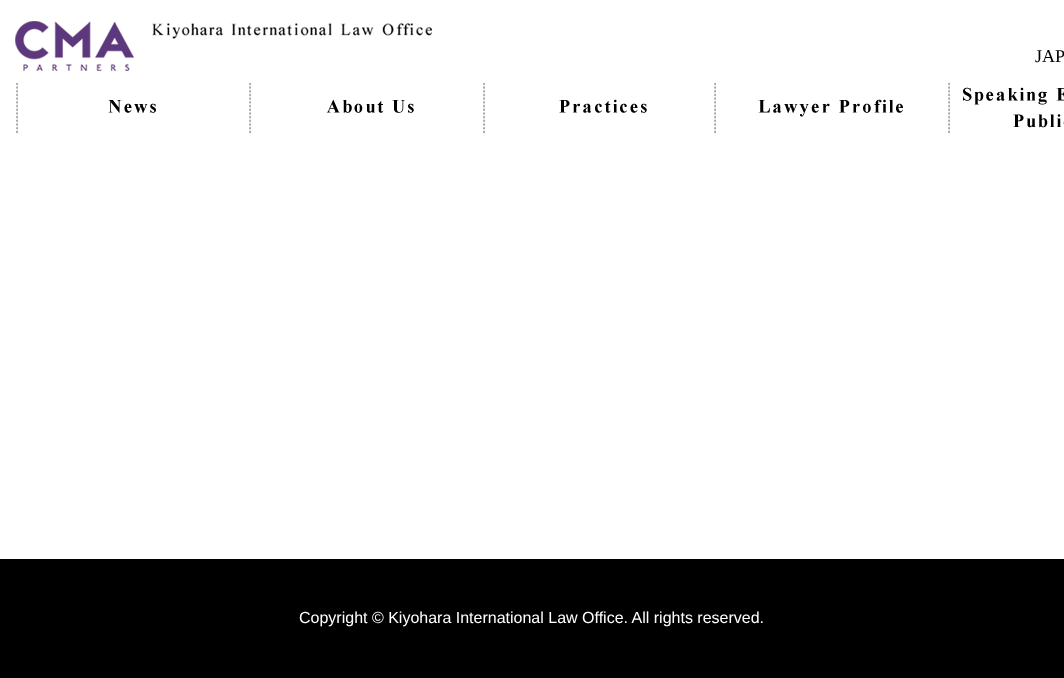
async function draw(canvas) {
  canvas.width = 1064
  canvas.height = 678
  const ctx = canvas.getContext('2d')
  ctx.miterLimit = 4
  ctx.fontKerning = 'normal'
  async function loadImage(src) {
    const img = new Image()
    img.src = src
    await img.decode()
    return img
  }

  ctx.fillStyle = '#fff'
  ctx.fillRect(0, 0, 1064, 678)
  ctx.drawImage(await loadImage('image0.png'), 15, 21, 417, 50)
  ctx.font = '18px Liberation Serif'
  ctx.fillStyle = '#000'
  ctx.fillText('JAP', 1035, 62)
  ctx.drawImage(await loadImage('image1.png'), 16, 83, 140, 50)
  ctx.drawImage(await loadImage('image2.png'), 249, 83, 165, 50)
  ctx.drawImage(await loadImage('image3.png'), 483, 83, 233, 50)
  ctx.drawImage(await loadImage('image4.png'), 758, 83, 192, 50)
  ctx.drawImage(await loadImage('image5.png'), 963, 87, 101, 41)
  ctx.fillRect(0, 559, 1064, 119)
  ctx.font = '16px Liberation Sans'
  ctx.fillStyle = '#fff'
  ctx.fillText('Copyright © Kiyohara International Law Office. All rights reserved.', 299, 623)
}

draw(document.querySelector('canvas'))
